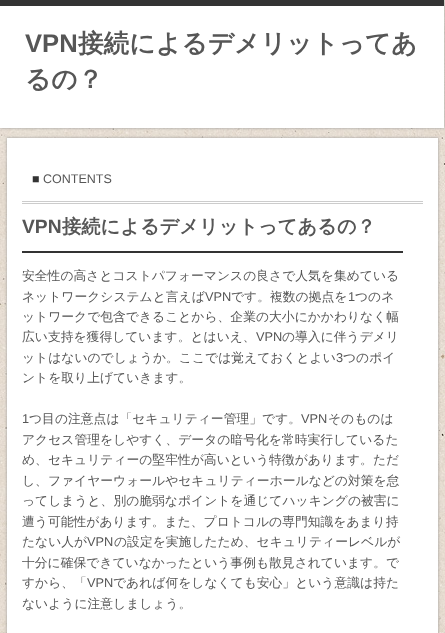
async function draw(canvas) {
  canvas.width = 445
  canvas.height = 633
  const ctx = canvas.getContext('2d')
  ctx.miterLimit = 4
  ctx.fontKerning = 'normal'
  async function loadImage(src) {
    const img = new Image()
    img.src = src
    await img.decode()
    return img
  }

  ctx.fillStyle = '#fff'
  ctx.fillRect(0, 0, 445, 633)
  ctx.drawImage(await loadImage('image0.png'), 0, 0, 445, 633)
  ctx.fillStyle = '#999'
  ctx.filter = 'blur(1.5px)'
  ctx.beginPath()
  ctx.rect(0, 0, 444, 128)
  ctx.fill()
  ctx.filter = 'none'
  ctx.fillStyle = '#fff'
  ctx.fillRect(0, 6, 444, 122)
  ctx.fillStyle = '#333'
  ctx.fillRect(0, 0, 444, 6)
  ctx.font = 'bold 25.6px Liberation Sans'
  ctx.fillStyle = '#565656'
  ctx.fillText('VPN', 25, 52)
  ctx.font = 'bold 25.6px WenQuanYi Zen Hei'
  ctx.fillText('接続によるデメリットってあ', 78, 52)
  ctx.fillText('るの？', 25, 88)
  ctx.fillStyle = '#999'
  ctx.filter = 'blur(1.5px)'
  ctx.beginPath()
  ctx.rect(7, 138, 431, 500)
  ctx.fill()
  ctx.filter = 'none'
  ctx.fillStyle = '#fff'
  ctx.fillRect(7, 138, 431, 495)
  ctx.fillStyle = '#ccc'
  ctx.fillRect(22, 201, 401, 1)
  ctx.fillRect(22, 203, 401, 1)
  ctx.font = '12.5px Liberation Sans'
  ctx.fillStyle = '#333'
  ctx.fillText('■', 32, 183)
  ctx.fillStyle = '#565656'
  ctx.fillText('CONTENTS', 43, 183)
  ctx.fillStyle = '#333'
  ctx.fillRect(22, 251, 381, 2)
  ctx.font = 'bold 19.25px Liberation Sans'
  ctx.fillStyle = '#565656'
  ctx.fillText('VPN', 22, 233)
  ctx.font = 'bold 19.25px WenQuanYi Zen Hei'
  ctx.fillText('接続によるデメリットってあるの？', 62, 233)
  ctx.font = '500 12.8px WenQuanYi Zen Hei'
  ctx.fillText('安全性の高さとコストパフォーマンスの良さで人気を集めている', 22, 280)
  ctx.fillText('ネットワークシステムと言えば', 22, 301)
  ctx.font = '12.8px Liberation Sans'
  ctx.fillText('VPN', 205, 301)
  ctx.font = '500 12.8px WenQuanYi Zen Hei'
  ctx.fillText('です。複数の拠点を', 231, 301)
  ctx.font = '12.8px Liberation Sans'
  ctx.fillText('1', 348, 301)
  ctx.font = '500 12.8px WenQuanYi Zen Hei'
  ctx.fillText('つのネ', 355, 301)
  ctx.fillText('ットワークで包含できることから、企業の大小にかかわりなく幅', 22, 321)
  ctx.fillText('広い支持を獲得しています。とはいえ、', 22, 341)
  ctx.font = '12.8px Liberation Sans'
  ctx.fillText('VPN', 256, 341)
  ctx.font = '500 12.8px WenQuanYi Zen Hei'
  ctx.fillText('の導入に伴うデメリ', 282, 341)
  ctx.fillText('ットはないのでしょうか。ここでは覚えておくとよい', 22, 362)
  ctx.font = '12.8px Liberation Sans'
  ctx.fillText('3', 336, 362)
  ctx.font = '500 12.8px WenQuanYi Zen Hei'
  ctx.fillText('つのポイ', 343, 362)
  ctx.fillText('ントを取り上げていきます。', 22, 382)
  ctx.font = '12.8px Liberation Sans'
  ctx.fillText('1', 22, 423)
  ctx.font = '500 12.8px WenQuanYi Zen Hei'
  ctx.fillText('つ目の注意点は「セキュリティー管理」です。', 29, 423)
  ctx.font = '12.8px Liberation Sans'
  ctx.fillText('VPN', 301, 423)
  ctx.font = '500 12.8px WenQuanYi Zen Hei'
  ctx.fillText('そのものは', 328, 423)
  ctx.fillText('アクセス管理をしやすく、データの暗号化を常時実行しているた', 22, 444)
  ctx.fillText('め、セキュリティーの堅牢性が高いという特徴があります。ただ', 22, 464)
  ctx.fillText('し、ファイヤーウォールやセキュリティーホールなどの対策を怠', 22, 485)
  ctx.fillText('ってしまうと、別の脆弱なポイントを通じてハッキングの被害に', 22, 505)
  ctx.fillText('遭う可能性があります。また、プロトコルの専門知識をあまり持', 22, 526)
  ctx.fillText('たない人が', 22, 546)
  ctx.font = '12.8px Liberation Sans'
  ctx.fillText('VPN', 87, 546)
  ctx.font = '500 12.8px WenQuanYi Zen Hei'
  ctx.fillText('の設定を実施したため、セキュリティーレベルが', 114, 546)
  ctx.fillText('十分に確保できていなかったという事例も散見されています。で', 22, 567)
  ctx.fillText('すから、「', 22, 587)
  ctx.font = '12.8px Liberation Sans'
  ctx.fillText('VPN', 87, 587)
  ctx.font = '500 12.8px WenQuanYi Zen Hei'
  ctx.fillText('であれば何をしなくても安心」という意識は持た', 113, 587)
  ctx.fillText('ないように注意しましょう。', 22, 608)
}

draw(document.querySelector('canvas'))
